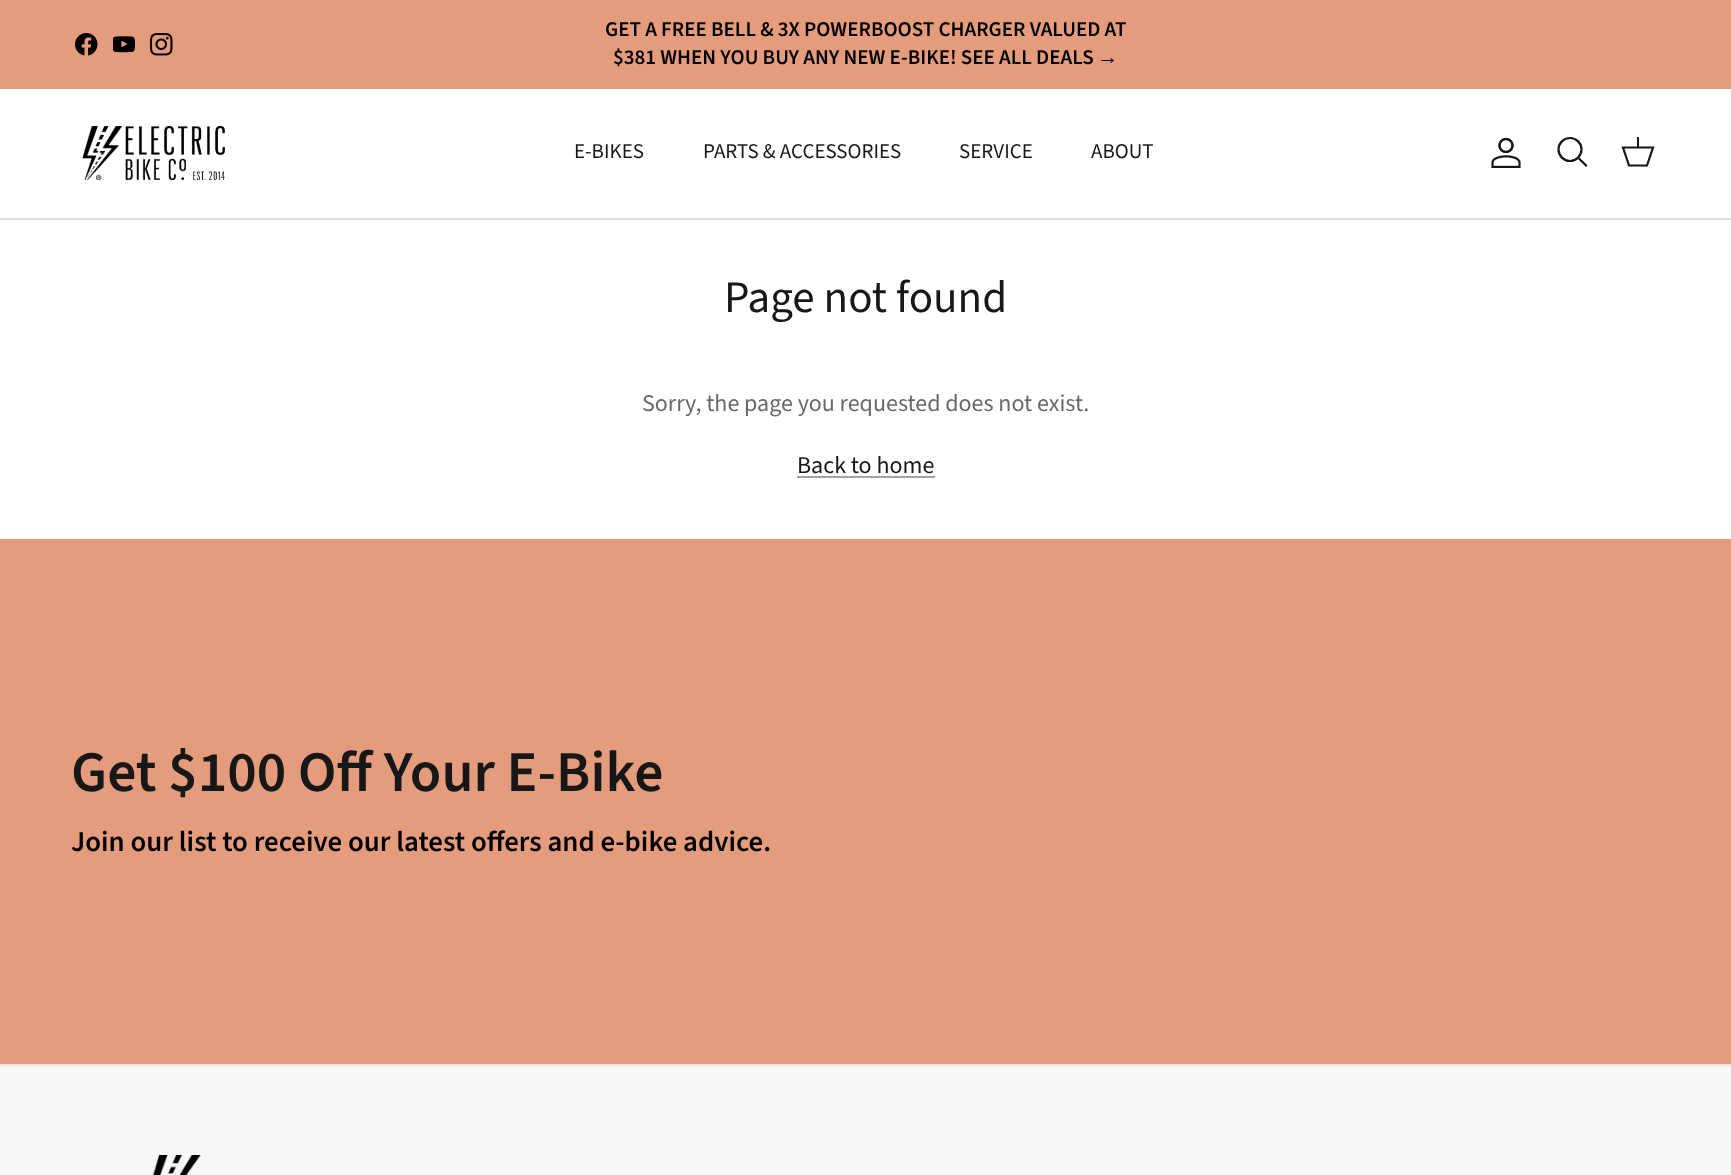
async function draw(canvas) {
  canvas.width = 1731
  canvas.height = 1175
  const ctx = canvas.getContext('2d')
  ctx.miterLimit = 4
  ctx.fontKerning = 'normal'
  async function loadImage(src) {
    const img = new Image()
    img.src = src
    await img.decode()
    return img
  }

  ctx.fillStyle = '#fff'
  ctx.fillRect(0, 0, 1731, 1175)
  ctx.fillStyle = '#e49c7c'
  ctx.fillRect(0, 0, 1731, 89)
  ctx.drawImage(await loadImage('image0.png'), 75, 33, 23, 23)
  ctx.drawImage(await loadImage('image1.png'), 113, 36, 22, 17)
  ctx.drawImage(await loadImage('image2.png'), 150, 33, 23, 23)
  ctx.font = '600 21px Source Sans Pro'
  ctx.fillStyle = '#000'
  ctx.fillText('GET A FREE BELL & 3X POWERBOOST CHARGER VALUED AT', 605, 36)
  ctx.fillText('$381 WHEN YOU BUY ANY NEW E-BIKE! SEE ALL DEALS', 613, 64)
  ctx.font = 'bold 21px Liberation Sans'
  ctx.fillText('→', 1097, 64)
  ctx.fillStyle = '#e2e2e2'
  ctx.fillRect(0, 218, 1731, 2)
  ctx.drawImage(await loadImage('image3.png'), 82, 126, 143, 55)
  ctx.font = '21px Source Sans Pro'
  ctx.fillStyle = '#171717'
  ctx.fillText('E-BIKES', 574, 158)
  ctx.fillText('PARTS & ACCESSORIES', 703, 158)
  ctx.fillText('SERVICE', 959, 158)
  ctx.fillText('ABOUT', 1091, 158)
  ctx.drawImage(await loadImage('image4.png'), 1491, 137, 30, 31)
  ctx.beginPath()
  ctx.arc(1570, 149.5, 11.5, 0, 2 * Math.PI)
  ctx.strokeStyle = '#171717'
  ctx.lineWidth = 2.2
  ctx.stroke()
  ctx.beginPath()
  ctx.moveTo(1579.5, 159)
  ctx.lineTo(1586, 165.5)
  ctx.lineCap = 'square'
  ctx.stroke()
  ctx.beginPath()
  ctx.moveTo(1623, 147.5)
  ctx.lineTo(1653, 147.5)
  ctx.lineTo(1647, 165.5)
  ctx.lineTo(1629, 165.5)
  ctx.closePath()
  ctx.lineCap = 'butt'
  ctx.stroke()
  ctx.fillRect(1637, 137, 2, 11)
  ctx.font = '45px Source Sans Pro'
  ctx.fillText('Page not found', 724, 312)
  ctx.font = '24px Source Sans Pro'
  ctx.fillStyle = '#676869'
  ctx.fillText('Sorry, the page you requested does not exist.', 642, 411)
  ctx.fillStyle = '#171717'
  ctx.fillText('Back to home', 797, 473)
  ctx.fillStyle = '#a2a2a2'
  ctx.fillRect(797, 476, 138, 2)
  ctx.fillStyle = '#e49c7c'
  ctx.fillRect(0, 539, 1731, 525)
  ctx.font = '600 57.6px Source Sans Pro'
  ctx.fillStyle = '#171717'
  ctx.fillText('Get $100 Off Your E-Bike', 71, 791)
  ctx.font = '600 28.8px Source Sans Pro'
  ctx.fillStyle = '#000'
  ctx.fillText('Join our list to receive our latest offers and e-bike advice.', 71, 851)
  ctx.fillStyle = '#f7f7f8'
  ctx.fillRect(0, 1066, 1731, 109)
  ctx.fillStyle = '#e4e4e4'
  ctx.fillRect(0, 1064, 1731, 2)
  ctx.drawImage(await loadImage('image5.png'), 152, 1155, 49, 20)
}

draw(document.querySelector('canvas'))
